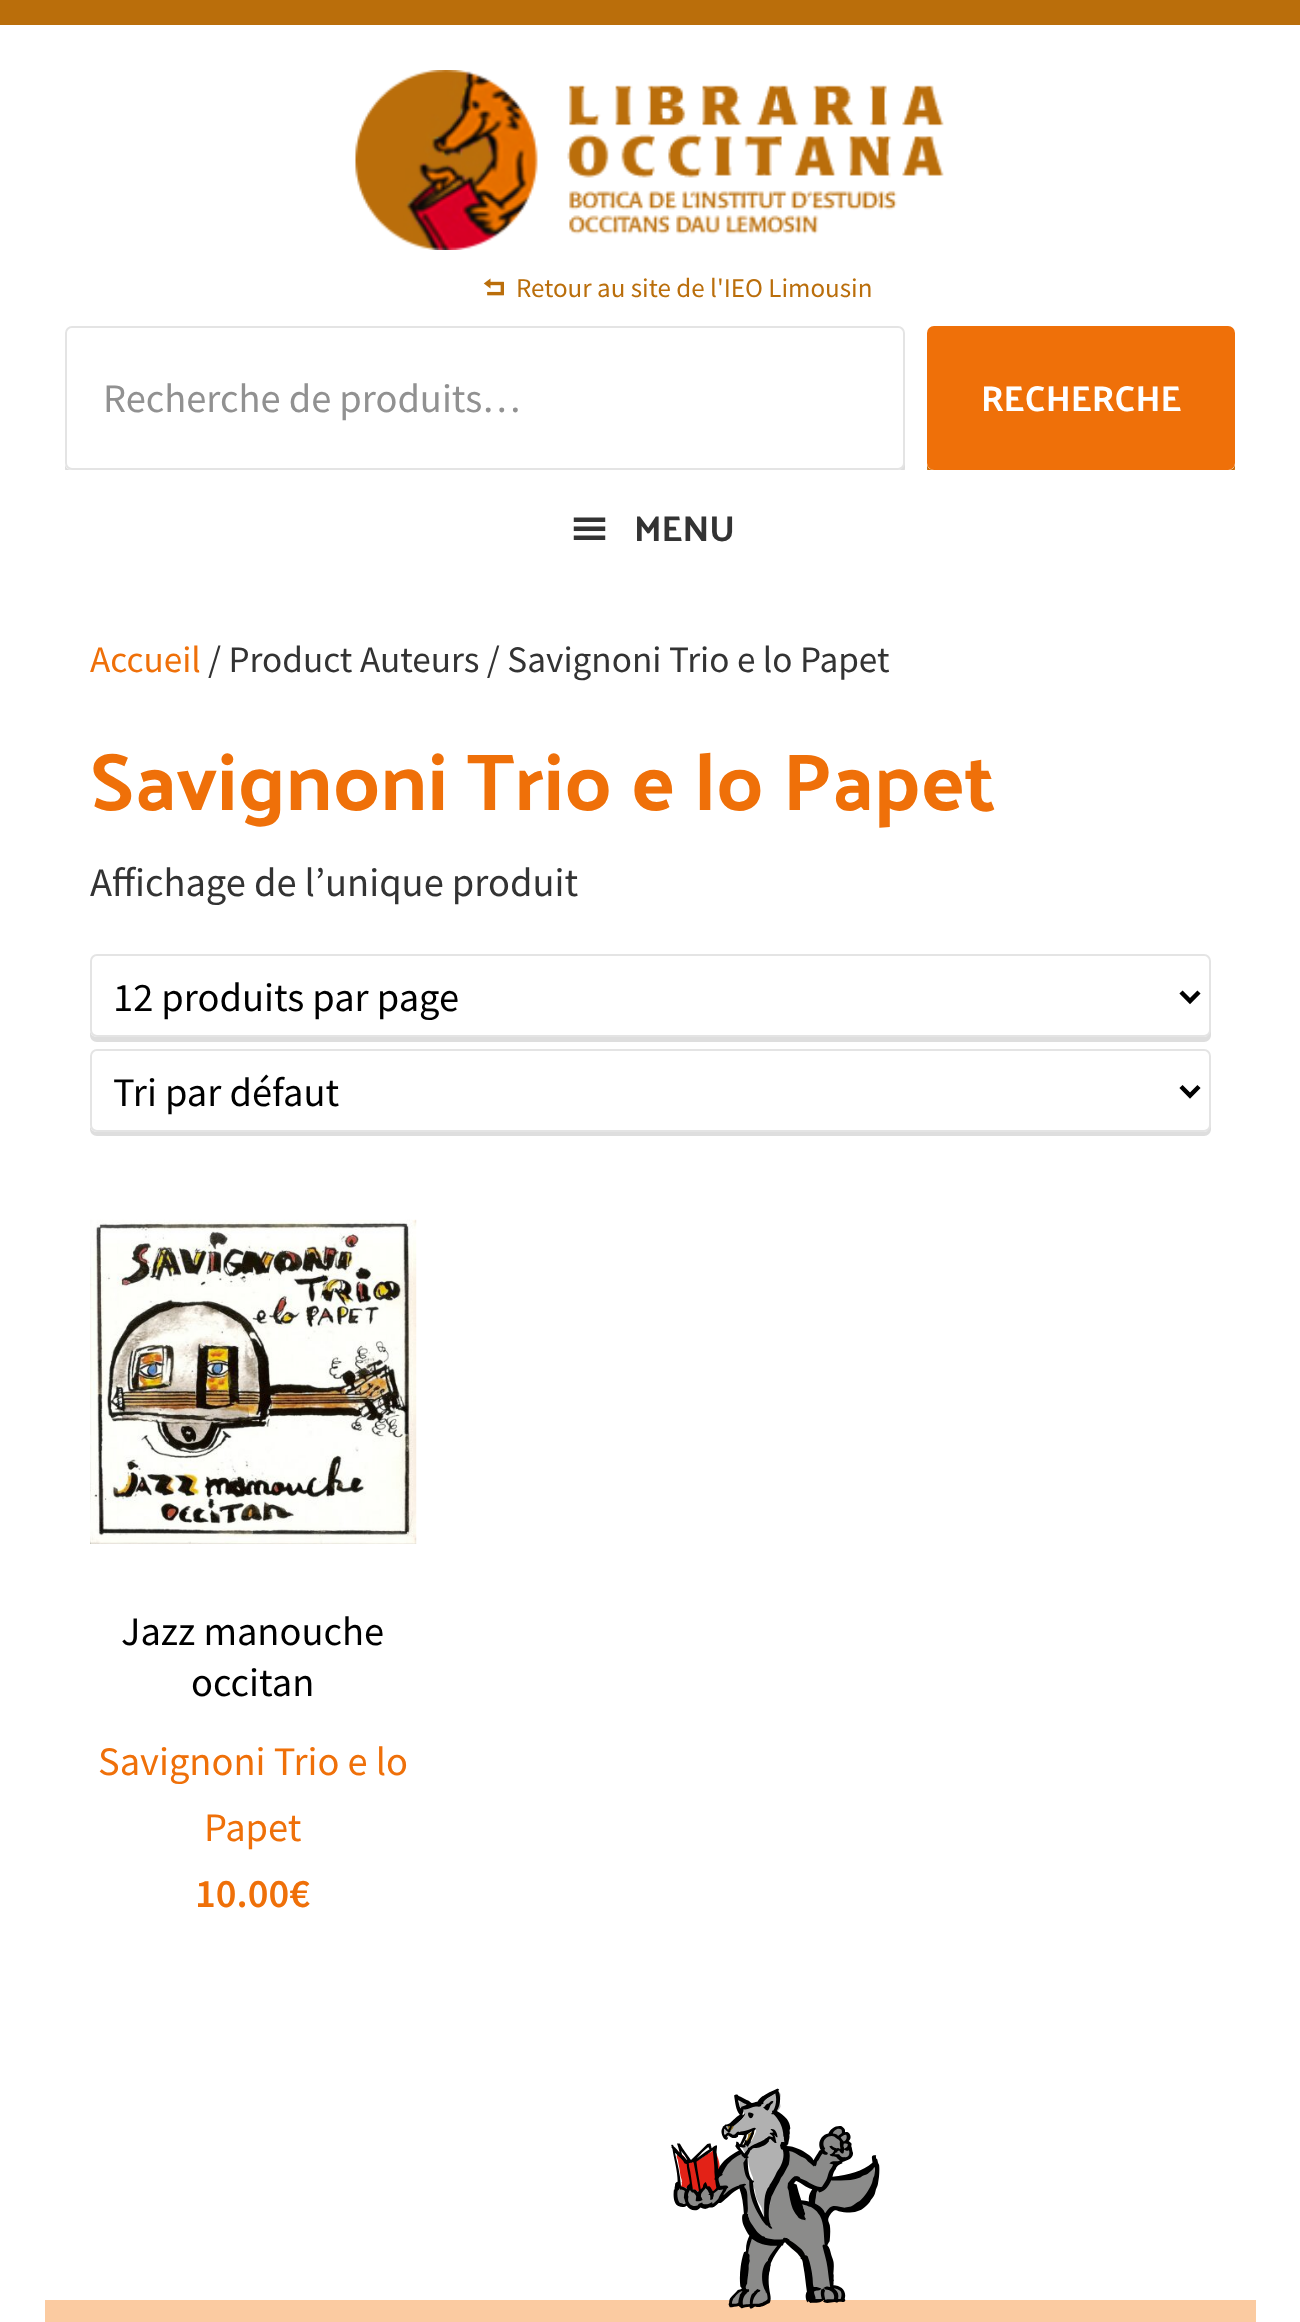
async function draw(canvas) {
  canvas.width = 1300
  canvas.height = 2322
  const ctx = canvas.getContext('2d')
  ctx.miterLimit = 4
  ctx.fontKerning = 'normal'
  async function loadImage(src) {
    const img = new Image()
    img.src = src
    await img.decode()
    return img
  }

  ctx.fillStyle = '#fff'
  ctx.fillRect(0, 0, 1300, 2322)
  ctx.fillStyle = '#ba6e0b'
  ctx.fillRect(0, 0, 1300, 25)
  ctx.drawImage(await loadImage('image0.png'), 355, 70, 589, 180)
  ctx.drawImage(await loadImage('image1.png'), 483, 278, 21, 18)
  ctx.font = '27px Source Sans Pro'
  ctx.fillText('Retour au site de l\'IEO Limousin', 516, 297)
  ctx.fillStyle = '#dedede'
  ctx.beginPath()
  ctx.moveTo(65, 336)
  ctx.lineTo(65, 468)
  ctx.bezierCurveTo(65, 472, 68, 475, 72, 475)
  ctx.lineTo(898, 475)
  ctx.bezierCurveTo(902, 475, 905, 472, 905, 468)
  ctx.lineTo(905, 338)
  ctx.lineTo(904, 335)
  ctx.lineTo(904, 464)
  ctx.bezierCurveTo(904, 467, 901, 470, 898, 470)
  ctx.lineTo(72, 470)
  ctx.bezierCurveTo(68, 470, 65, 467, 65, 464)
  ctx.closePath()
  ctx.fill()
  ctx.fillStyle = '#fff'
  ctx.beginPath()
  ctx.roundRect(66, 327, 838, 142, 6)
  ctx.fill()
  ctx.strokeStyle = '#e4e4e4'
  ctx.lineWidth = 2
  ctx.stroke()
  ctx.font = '40.5px Source Sans Pro'
  ctx.fillStyle = '#919191'
  ctx.fillText('Recherche de produits…', 103, 412)
  ctx.fillStyle = '#cd6b02'
  ctx.beginPath()
  ctx.moveTo(927, 464)
  ctx.lineTo(927, 468)
  ctx.bezierCurveTo(927, 472, 930, 475, 934, 475)
  ctx.lineTo(1228, 475)
  ctx.bezierCurveTo(1232, 475, 1235, 472, 1235, 468)
  ctx.lineTo(1235, 465)
  ctx.bezierCurveTo(1234, 468, 1232, 470, 1228, 470)
  ctx.lineTo(934, 470)
  ctx.bezierCurveTo(930, 470, 927, 467, 927, 464)
  ctx.closePath()
  ctx.fill()
  ctx.fillStyle = '#ef7009'
  ctx.beginPath()
  ctx.roundRect(927, 326, 308, 144, 7)
  ctx.fill()
  ctx.font = '36px Palanquin Dark'
  ctx.fillStyle = '#fff'
  ctx.fillText('RECHERCHE', 981, 411)
  ctx.beginPath()
  ctx.roundRect(0, 470, 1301, 117, 7)
  ctx.fill()
  ctx.drawImage(await loadImage('image2.png'), 573, 517, 33, 23)
  ctx.fillStyle = '#333'
  ctx.fillText('MENU', 634, 541)
  ctx.font = '37.25px Source Sans Pro'
  ctx.fillStyle = '#ef7009'
  ctx.fillText('Accueil', 90, 672)
  ctx.fillStyle = '#333'
  ctx.fillText('/ Product Auteurs / Savignoni Trio e lo Papet', 208, 672)
  ctx.font = '81px Palanquin Dark'
  ctx.fillStyle = '#ef7009'
  ctx.fillText('Savignoni Trio e lo Papet', 90, 810)
  ctx.font = '40.5px Source Sans Pro'
  ctx.fillStyle = '#333'
  ctx.fillText('Affichage de l’unique produit', 90, 896)
  ctx.fillStyle = '#dedede'
  ctx.beginPath()
  ctx.moveTo(90, 1030)
  ctx.lineTo(90, 1035)
  ctx.bezierCurveTo(90, 1039, 93, 1042, 97, 1042)
  ctx.lineTo(1204, 1042)
  ctx.bezierCurveTo(1208, 1042, 1211, 1039, 1211, 1035)
  ctx.lineTo(1211, 966)
  ctx.lineTo(1210, 963)
  ctx.lineTo(1210, 1030)
  ctx.bezierCurveTo(1210, 1034, 1207, 1037, 1204, 1037)
  ctx.lineTo(97, 1037)
  ctx.bezierCurveTo(93, 1037, 90, 1034, 90, 1030)
  ctx.closePath()
  ctx.fill()
  ctx.fillStyle = '#fff'
  ctx.beginPath()
  ctx.roundRect(91, 955, 1119, 81, 6)
  ctx.fill()
  ctx.stroke()
  ctx.beginPath()
  ctx.moveTo(1181, 992)
  ctx.lineTo(1190, 1001)
  ctx.lineTo(1199, 992)
  ctx.strokeStyle = '#000'
  ctx.lineWidth = 4.5
  ctx.stroke()
  ctx.fillStyle = '#000'
  ctx.fillText('12 produits par page', 113, 1011)
  ctx.fillStyle = '#dedede'
  ctx.beginPath()
  ctx.moveTo(90, 1125)
  ctx.lineTo(90, 1129)
  ctx.bezierCurveTo(90, 1133, 93, 1136, 97, 1136)
  ctx.lineTo(1204, 1136)
  ctx.bezierCurveTo(1208, 1136, 1211, 1133, 1211, 1129)
  ctx.lineTo(1211, 1060)
  ctx.lineTo(1210, 1057)
  ctx.lineTo(1210, 1125)
  ctx.bezierCurveTo(1210, 1129, 1207, 1132, 1204, 1132)
  ctx.lineTo(97, 1132)
  ctx.bezierCurveTo(93, 1132, 90, 1129, 90, 1125)
  ctx.closePath()
  ctx.fill()
  ctx.fillStyle = '#fff'
  ctx.beginPath()
  ctx.roundRect(91, 1050, 1119, 81, 6)
  ctx.fill()
  ctx.strokeStyle = '#e4e4e4'
  ctx.lineWidth = 2
  ctx.stroke()
  ctx.beginPath()
  ctx.moveTo(1181, 1086.5)
  ctx.lineTo(1190, 1095.5)
  ctx.lineTo(1199, 1086.5)
  ctx.strokeStyle = '#000'
  ctx.lineWidth = 4.5
  ctx.stroke()
  ctx.fillStyle = '#000'
  ctx.fillText('Tri par défaut', 113, 1106)
  ctx.drawImage(await loadImage('image3.png'), 90, 1219, 327, 325)
  ctx.fillText('Jazz manouche', 121, 1645)
  ctx.fillText('occitan', 191, 1696)
  ctx.fillStyle = '#ef7009'
  ctx.fillText('Savignoni Trio e lo', 98, 1775)
  ctx.fillText('Papet', 204, 1841)
  ctx.font = '600 40.5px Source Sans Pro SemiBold'
  ctx.fillText('10.00€', 195, 1907)
  ctx.fillStyle = '#fbcba1'
  ctx.fillRect(45, 2300, 1211, 22)
  ctx.drawImage(await loadImage('image4.png'), 671, 2088, 209, 221)
}

draw(document.querySelector('canvas'))
